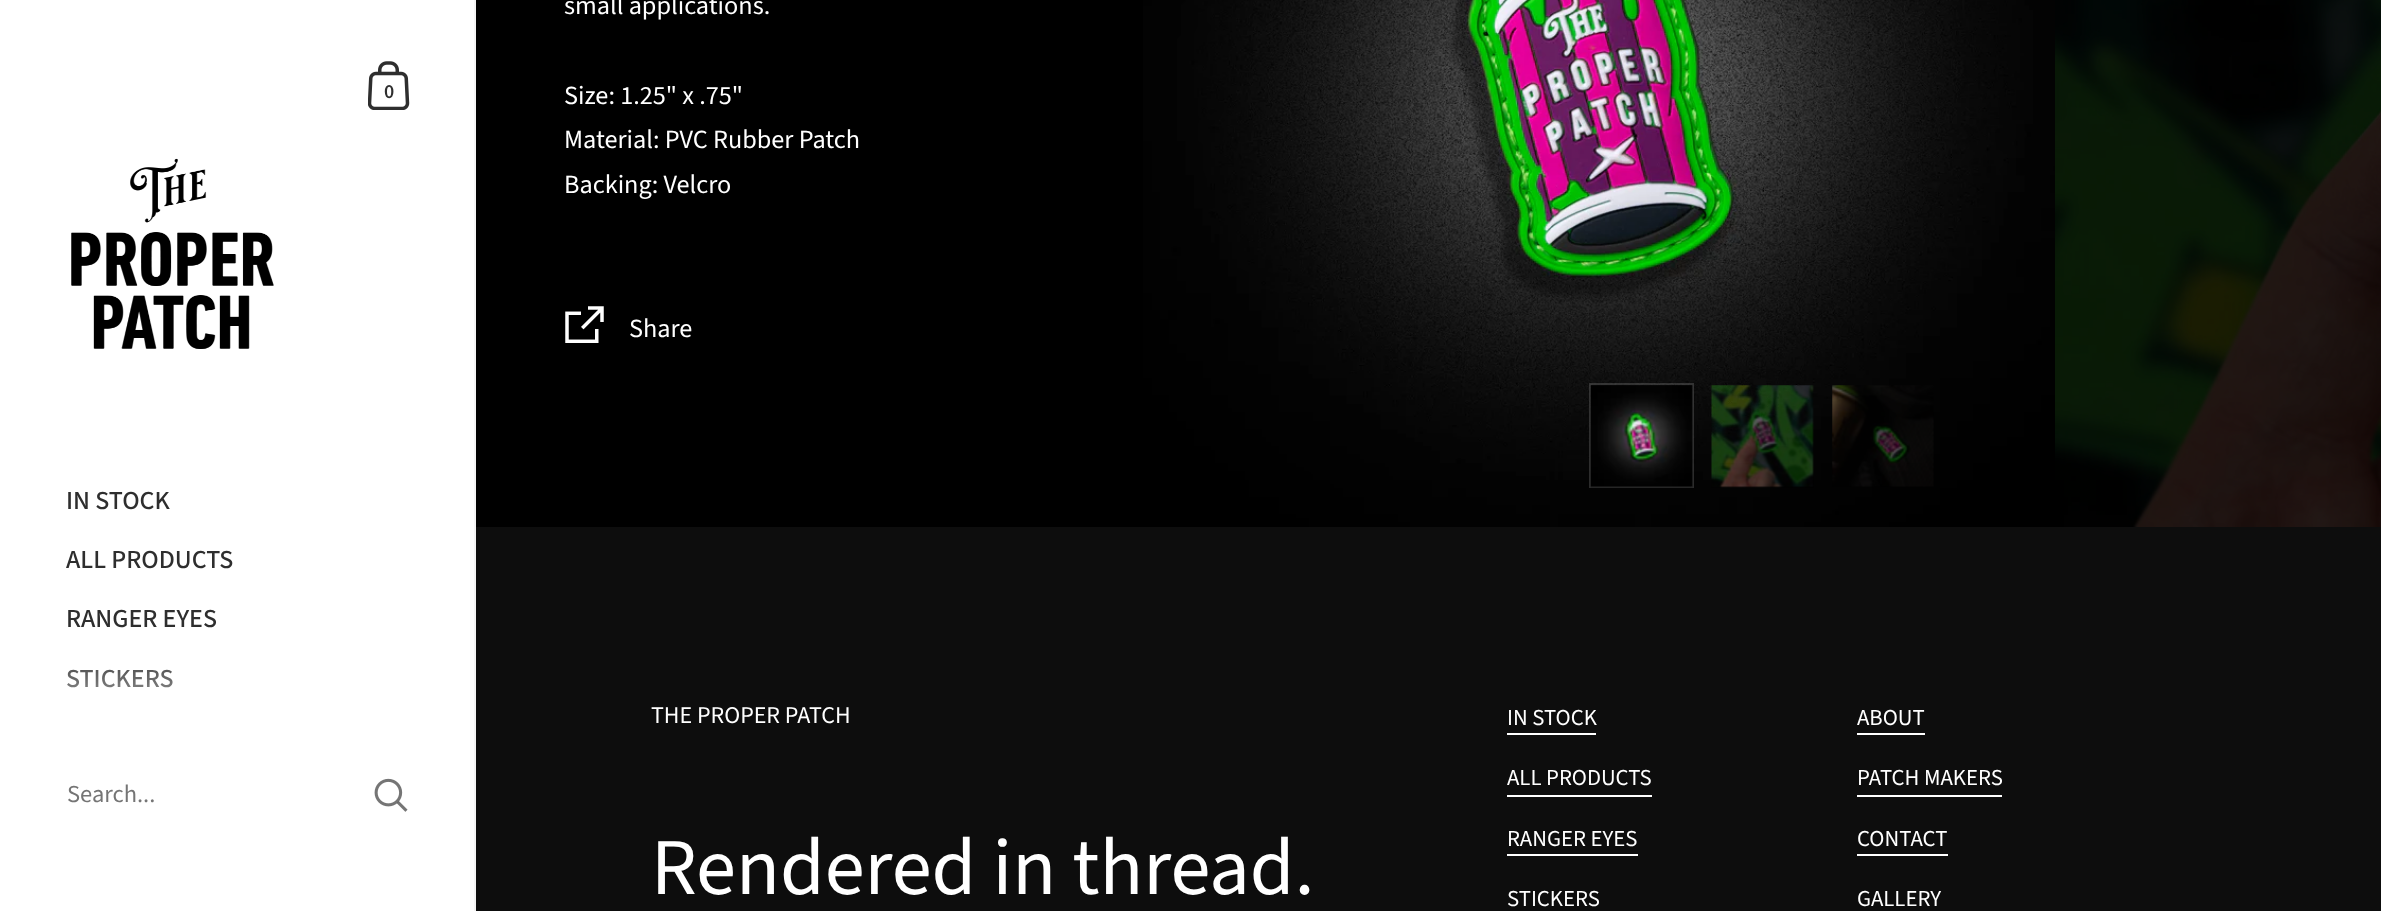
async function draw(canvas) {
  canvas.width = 2381
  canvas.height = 911
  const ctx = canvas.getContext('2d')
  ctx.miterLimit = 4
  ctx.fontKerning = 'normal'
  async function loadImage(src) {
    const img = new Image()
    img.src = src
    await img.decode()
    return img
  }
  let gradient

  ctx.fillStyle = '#000'
  ctx.fillRect(0, 0, 2381, 911)
  ctx.fillStyle = '#fff'
  ctx.fillRect(0, 0, 474, 911)
  ctx.fillStyle = '#f5f5f5'
  ctx.fillRect(474, 0, 2, 911)
  ctx.drawImage(await loadImage('image0.png'), 368, 61, 42, 49)
  ctx.font = '600 20px Source Sans Pro'
  ctx.fillStyle = '#2e2e2e'
  ctx.fillText('0', 384, 98)
  ctx.drawImage(await loadImage('image1.png'), 71, 158, 203, 191)
  ctx.font = '500 26px Source Sans Pro'
  ctx.fillText('IN STOCK', 66, 509)
  ctx.fillText('ALL PRODUCTS', 66, 568)
  ctx.fillText('RANGER EYES', 66, 627)
  ctx.fillText('STICKERS', 66, 687)
  gradient = ctx.createLinearGradient(238, 754, 238, 649)
  gradient.addColorStop(0, '#fff')
  gradient.addColorStop(1, '#ffffff00')
  ctx.fillStyle = gradient
  ctx.fillRect(67, 669, 106, 19)
  ctx.font = '24.5px Source Sans Pro'
  ctx.fillStyle = '#757575'
  ctx.fillText('Search...', 67, 802)
  ctx.drawImage(await loadImage('image2.png'), 374, 778, 34, 34)
  ctx.font = '26.25px Source Sans Pro'
  ctx.fillStyle = '#fff'
  ctx.fillText('small applications.', 564, 14)
  ctx.fillText('Size: 1.25" x .75"', 564, 104)
  ctx.fillText('Material: PVC Rubber Patch', 564, 148)
  ctx.fillText('Backing: Velcro', 564, 193)
  ctx.drawImage(await loadImage('image3.png'), 565, 306, 39, 37)
  ctx.fillText('Share', 629, 337)
  ctx.drawImage(await loadImage('image4.png'), 1143, 0, 912, 527)
  ctx.drawImage(await loadImage('image5.png'), 2055, 0, 326, 527)
  ctx.strokeStyle = '#ffffff29'
  ctx.lineWidth = 2
  ctx.strokeRect(1590, 384, 103, 103)
  ctx.fillStyle = '#ffffff0a'
  ctx.fillRect(1591, 385, 101, 102)
  ctx.drawImage(await loadImage('image6.png'), 1590, 385, 103, 103)
  ctx.drawImage(await loadImage('image7.png'), 1711, 385, 103, 103)
  ctx.drawImage(await loadImage('image8.png'), 1832, 385, 102, 102)
  ctx.fillStyle = '#0d0d0d'
  ctx.fillRect(476, 527, 1905, 384)
  ctx.font = '24px Source Sans Pro'
  ctx.fillStyle = '#fff'
  ctx.fillText('THE PROPER PATCH', 651, 723)
  ctx.font = '80.5px Source Sans Pro'
  ctx.fillText('Rendered in thread.', 651, 894)
  ctx.font = '22.75px Source Sans Pro'
  ctx.fillText('IN STOCK', 1507, 725)
  ctx.fillRect(1507, 733, 89, 2)
  ctx.fillText('ALL PRODUCTS', 1507, 785)
  ctx.fillRect(1507, 795, 145, 2)
  ctx.fillText('RANGER EYES', 1507, 846)
  ctx.fillRect(1507, 854, 131, 2)
  ctx.fillText('STICKERS', 1507, 906)
  ctx.fillText('ABOUT', 1857, 725)
  ctx.fillRect(1857, 733, 68, 2)
  ctx.fillText('PATCH MAKERS', 1857, 785)
  ctx.fillRect(1857, 795, 145, 2)
  ctx.fillText('CONTACT', 1857, 846)
  ctx.fillRect(1857, 854, 91, 2)
  ctx.fillText('GALLERY', 1857, 906)
}

draw(document.querySelector('canvas'))
